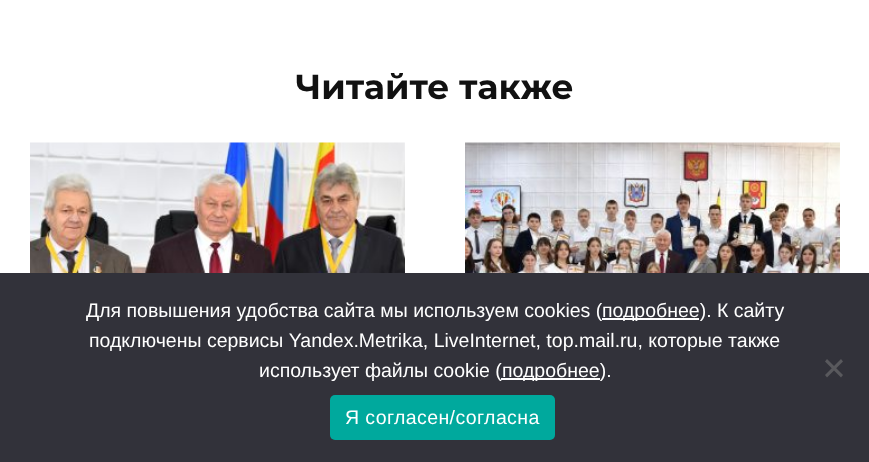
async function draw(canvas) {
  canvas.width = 869
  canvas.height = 462
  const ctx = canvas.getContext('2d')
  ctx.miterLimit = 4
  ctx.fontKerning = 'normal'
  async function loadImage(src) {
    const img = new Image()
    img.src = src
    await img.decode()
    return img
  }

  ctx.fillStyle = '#fff'
  ctx.fillRect(0, 0, 869, 462)
  ctx.font = 'bold 34.5px Montserrat'
  ctx.fillStyle = '#111'
  ctx.fillText('Читайте также', 296, 99)
  ctx.drawImage(await loadImage('image0.png'), 30, 142, 375, 131)
  ctx.drawImage(await loadImage('image1.png'), 465, 142, 375, 131)
  ctx.fillStyle = '#32323a'
  ctx.fillRect(0, 273, 869, 189)
  ctx.font = '19.5px Liberation Sans'
  ctx.fillStyle = '#fff'
  ctx.fillText('Для повышения удобства сайта мы используем cookies (', 86, 317)
  ctx.fillRect(602, 318, 97, 2)
  ctx.fillText('подробнее). К сайту', 602, 317)
  ctx.fillText('подключены сервисы Yandex.Metrika, LiveInternet, top.mail.ru, которые также', 89, 347)
  ctx.fillText('использует файлы cookie (', 259, 377)
  ctx.fillRect(501, 378, 99, 2)
  ctx.fillText('подробнее).', 502, 377)
  ctx.fillStyle = '#59595d'
  ctx.beginPath()
  ctx.moveTo(841, 359)
  ctx.lineTo(843, 361.5)
  ctx.lineTo(827, 377.5)
  ctx.lineTo(825, 375)
  ctx.closePath()
  ctx.fill()
  ctx.beginPath()
  ctx.moveTo(825, 361.5)
  ctx.lineTo(827, 359)
  ctx.lineTo(843, 375)
  ctx.lineTo(841, 377.5)
  ctx.closePath()
  ctx.fill()
  ctx.fillStyle = '#00a99d'
  ctx.beginPath()
  ctx.roundRect(330, 395, 225, 45, 5)
  ctx.fill()
  ctx.letterSpacing = '0.4px'
  ctx.fillStyle = '#fff'
  ctx.fillText('Я согласен/согласна', 345, 424)
}

draw(document.querySelector('canvas'))
